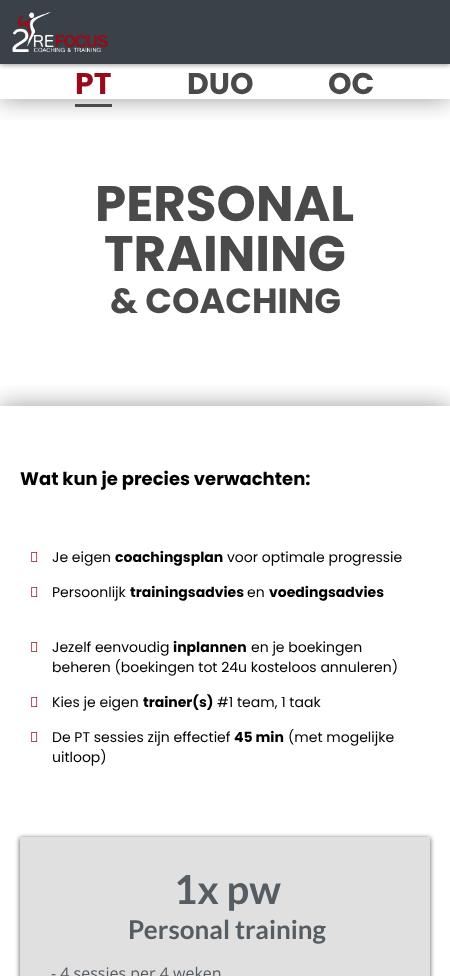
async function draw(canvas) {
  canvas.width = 450
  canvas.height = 976
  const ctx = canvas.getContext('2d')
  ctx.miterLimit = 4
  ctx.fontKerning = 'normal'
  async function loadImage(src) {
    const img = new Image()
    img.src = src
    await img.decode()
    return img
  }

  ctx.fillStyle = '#fff'
  ctx.fillRect(0, 0, 450, 976)
  ctx.fillStyle = '#00000066'
  ctx.filter = 'blur(2.5px)'
  ctx.beginPath()
  ctx.rect(0, 1, 450, 64)
  ctx.fill()
  ctx.filter = 'none'
  ctx.save()
  ctx.beginPath()
  ctx.rect(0, 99, 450, 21)
  ctx.clip()
  ctx.filter = 'blur(12.5px)'
  ctx.beginPath()
  ctx.rect(0, 64, 450, 35)
  ctx.fill()
  ctx.filter = 'none'
  ctx.restore()
  ctx.fillStyle = '#3a4149'
  ctx.fillRect(0, 0, 450, 64)
  ctx.drawImage(await loadImage('image0.png'), 12, 12, 96, 41)
  ctx.font = 'bold 30px Poppins'
  ctx.fillStyle = '#990b19'
  ctx.fillText('PT', 75, 94)
  ctx.fillStyle = '#4a4a4a'
  ctx.fillRect(75, 104, 37, 3)
  ctx.fillText('DUO', 187, 94)
  ctx.fillText('OC', 328, 94)
  ctx.font = 'bold 50px Poppins'
  ctx.fillText('PERSONAL', 95, 221)
  ctx.fillText('TRAINING', 104, 271)
  ctx.font = 'bold 35px Poppins'
  ctx.fillText('& COACHING', 110, 313)
  ctx.save()
  ctx.beginPath()
  ctx.rect(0, 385, 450, 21)
  ctx.clip()
  ctx.fillStyle = '#00000066'
  ctx.filter = 'blur(12.5px)'
  ctx.beginPath()
  ctx.rect(0, 406, 450, 421)
  ctx.fill()
  ctx.filter = 'none'
  ctx.restore()
  ctx.font = 'bold 18px Poppins'
  ctx.fillStyle = '#000'
  ctx.fillText('Wat kun je precies verwachten:', 20, 485)
  ctx.drawImage(await loadImage('image1.png'), 31, 552, 7, 10)
  ctx.font = '14px Poppins'
  ctx.fillText('Je eigen', 52, 562)
  ctx.font = 'bold 14px Poppins'
  ctx.fillText('coachingsplan', 115, 562)
  ctx.font = '14px Poppins'
  ctx.fillText('voor optimale progressie', 227, 562)
  ctx.drawImage(await loadImage('image1.png'), 31, 587, 7, 10)
  ctx.fillText('Persoonlijk', 52, 597)
  ctx.font = 'bold 14px Poppins'
  ctx.fillText('trainingsadvies', 130, 597)
  ctx.font = '14px Poppins'
  ctx.fillText('en', 247, 597)
  ctx.font = 'bold 14px Poppins'
  ctx.fillText('voedingsadvies', 269, 597)
  ctx.drawImage(await loadImage('image1.png'), 31, 642, 7, 10)
  ctx.font = '14px Poppins'
  ctx.fillText('Jezelf eenvoudig', 52, 652)
  ctx.font = 'bold 14px Poppins'
  ctx.fillText('inplannen', 173, 652)
  ctx.font = '14px Poppins'
  ctx.fillText('en je boekingen', 251, 652)
  ctx.fillText('beheren (boekingen tot 24u kosteloos annuleren)', 52, 672)
  ctx.drawImage(await loadImage('image1.png'), 31, 697, 7, 10)
  ctx.fillText('Kies je eigen', 52, 707)
  ctx.font = 'bold 14px Poppins'
  ctx.fillText('trainer(s)', 143, 707)
  ctx.font = '14px Poppins'
  ctx.fillText('#1 team, 1 taak', 217, 707)
  ctx.drawImage(await loadImage('image1.png'), 31, 732, 7, 10)
  ctx.fillText('De PT sessies zijn effectief', 52, 742)
  ctx.font = 'bold 14px Poppins'
  ctx.fillText('45 min', 234, 742)
  ctx.font = '14px Poppins'
  ctx.fillText('(met mogelijke', 288, 742)
  ctx.fillText('uitloop)', 52, 762)
  ctx.fillStyle = '#fff'
  ctx.fillRect(0, 827, 450, 24)
  ctx.fillStyle = '#000000b3'
  ctx.filter = 'blur(2.5px)'
  ctx.beginPath()
  ctx.rect(20, 838, 410, 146)
  ctx.fill()
  ctx.filter = 'none'
  ctx.fillStyle = '#e0e0e0'
  ctx.fillRect(20, 837, 410, 139)
  ctx.font = 'bold 40px Lato'
  ctx.fillStyle = '#555c62'
  ctx.fillText('1x pw', 174, 904)
  ctx.font = 'bold 26px Lato'
  ctx.fillText('Personal training', 128, 939)
  ctx.font = '16px Open Sans'
  ctx.fillText('- 4 sessies per 4 weken', 51, 979)
}

draw(document.querySelector('canvas'))
